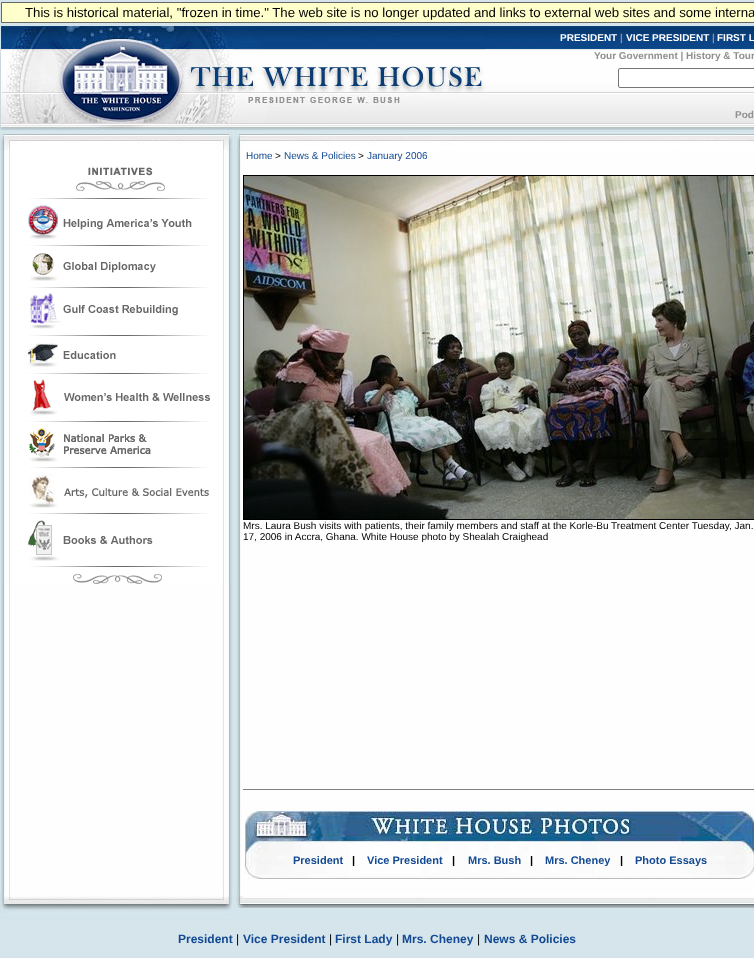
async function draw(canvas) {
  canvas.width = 754
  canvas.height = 958
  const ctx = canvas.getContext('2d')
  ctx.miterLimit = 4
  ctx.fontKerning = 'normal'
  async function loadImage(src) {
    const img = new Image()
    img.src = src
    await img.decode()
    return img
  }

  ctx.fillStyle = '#d5e5eb'
  ctx.fillRect(0, 0, 754, 958)
  ctx.fillStyle = '#ffc'
  ctx.beginPath()
  ctx.rect(1.5, 2.5, 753, 20)
  ctx.fill()
  ctx.strokeStyle = '#666'
  ctx.stroke()
  ctx.font = '13.2px Liberation Sans'
  ctx.fillStyle = '#000'
  ctx.fillText('This is historical material, "frozen in time." The web site is no longer updated and links to external web sites and some interna', 25, 17)
  ctx.drawImage(await loadImage('image0.png'), 485, 26, 269, 104)
  ctx.drawImage(await loadImage('image1.png'), 0, 26, 485, 104)
  ctx.font = 'bold 10px Liberation Sans'
  ctx.fillStyle = '#fff'
  ctx.fillText('PRESIDENT', 560, 41)
  ctx.fillStyle = '#919090'
  ctx.fillText('|', 620, 41)
  ctx.fillStyle = '#fff'
  ctx.fillText('VICE PRESIDENT', 626, 41)
  ctx.fillStyle = '#919090'
  ctx.fillText('|', 712, 41)
  ctx.fillStyle = '#fff'
  ctx.fillText('FIRST L', 717, 41)
  ctx.fillStyle = '#919090'
  ctx.fillText('Your Government | History & Tour', 594, 59)
  ctx.fillStyle = '#fff'
  ctx.beginPath()
  ctx.roundRect(618.5, 68.5, 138, 19, 1.5)
  ctx.fill()
  ctx.strokeStyle = '#767676'
  ctx.stroke()
  ctx.fillStyle = '#919090'
  ctx.fillText('Pod', 735, 118)
  ctx.drawImage(await loadImage('image2.png'), 1, 130, 753, 764)
  ctx.drawImage(await loadImage('image3.png'), 2, 150, 229, 435)
  ctx.drawImage(await loadImage('image4.png'), 0, 130, 233, 20)
  ctx.drawImage(await loadImage('image5.png'), 76, 167, 89, 24)
  ctx.drawImage(await loadImage('image6.png'), 29, 198, 180, 1)
  ctx.drawImage(await loadImage('image7.png'), 28, 205, 164, 34)
  ctx.drawImage(await loadImage('image6.png'), 29, 245, 180, 1)
  ctx.drawImage(await loadImage('image8.png'), 30, 253, 126, 28)
  ctx.drawImage(await loadImage('image6.png'), 29, 287, 180, 1)
  ctx.drawImage(await loadImage('image9.png'), 30, 293, 148, 36)
  ctx.drawImage(await loadImage('image6.png'), 29, 335, 180, 1)
  ctx.drawImage(await loadImage('image10.png'), 28, 343, 88, 24)
  ctx.drawImage(await loadImage('image6.png'), 29, 373, 180, 1)
  ctx.drawImage(await loadImage('image11.png'), 30, 379, 180, 36)
  ctx.drawImage(await loadImage('image6.png'), 29, 421, 180, 1)
  ctx.drawImage(await loadImage('image12.png'), 29, 428, 122, 34)
  ctx.drawImage(await loadImage('image6.png'), 29, 467, 180, 1)
  ctx.drawImage(await loadImage('image13.png'), 29, 473, 180, 35)
  ctx.drawImage(await loadImage('image6.png'), 29, 513, 180, 1)
  ctx.drawImage(await loadImage('image14.png'), 28, 520, 125, 41)
  ctx.drawImage(await loadImage('image6.png'), 29, 566, 180, 1)
  ctx.drawImage(await loadImage('image15.png'), 73, 574, 89, 10)
  ctx.drawImage(await loadImage('image16.png'), 237, 130, 517, 20)
  ctx.font = '10px Liberation Sans'
  ctx.fillStyle = '#134992'
  ctx.fillText('Home', 246, 159)
  ctx.fillStyle = '#000'
  ctx.fillText('>', 275, 159)
  ctx.fillStyle = '#134992'
  ctx.fillText('News & Policies', 284, 159)
  ctx.fillStyle = '#000'
  ctx.fillText('>', 358, 159)
  ctx.fillStyle = '#134992'
  ctx.fillText('January 2006', 367, 159)
  ctx.fillStyle = '#000'
  ctx.fillRect(243, 175, 511, 345)
  ctx.drawImage(await loadImage('image17.png'), 244, 176, 510, 343)
  ctx.fillText('Mrs. Laura Bush visits with patients, their family members and staff at the Korle-Bu Treatment Center Tuesday, Jan.', 243, 529)
  ctx.fillText('17, 2006 in Accra, Ghana. White House photo by Shealah Craighead', 243, 540)
  ctx.fillStyle = '#808080'
  ctx.fillRect(243, 789, 511, 1)
  ctx.drawImage(await loadImage('image18.png'), 245, 811, 509, 43)
  ctx.drawImage(await loadImage('image19.png'), 245, 854, 509, 12)
  ctx.font = 'bold 11px Liberation Sans'
  ctx.fillStyle = '#134992'
  ctx.fillText('President', 293, 864)
  ctx.fillStyle = '#000'
  ctx.fillText('|', 352, 864)
  ctx.fillStyle = '#134992'
  ctx.fillText('Vice President', 367, 864)
  ctx.fillStyle = '#000'
  ctx.fillText('|', 452, 864)
  ctx.fillStyle = '#134992'
  ctx.fillText('Mrs. Bush', 468, 864)
  ctx.fillStyle = '#000'
  ctx.fillText('|', 530, 864)
  ctx.fillStyle = '#134992'
  ctx.fillText('Mrs. Cheney', 545, 864)
  ctx.fillStyle = '#000'
  ctx.fillText('|', 620, 864)
  ctx.fillStyle = '#134992'
  ctx.fillText('Photo Essays', 635, 864)
  ctx.drawImage(await loadImage('image20.png'), 245, 866, 509, 13)
  ctx.drawImage(await loadImage('image21.png'), 0, 894, 754, 25)
  ctx.font = 'bold 12px Liberation Sans'
  ctx.fillText('President', 178, 943)
  ctx.font = '12px Liberation Sans'
  ctx.fillStyle = '#000'
  ctx.fillText('|', 236, 943)
  ctx.font = 'bold 12px Liberation Sans'
  ctx.fillStyle = '#134992'
  ctx.fillText('Vice President', 243, 943)
  ctx.font = '12px Liberation Sans'
  ctx.fillStyle = '#000'
  ctx.fillText('|', 329, 943)
  ctx.font = 'bold 12px Liberation Sans'
  ctx.fillStyle = '#134992'
  ctx.fillText('First Lady', 335, 943)
  ctx.font = '12px Liberation Sans'
  ctx.fillStyle = '#000'
  ctx.fillText('|', 396, 943)
  ctx.font = 'bold 12px Liberation Sans'
  ctx.fillStyle = '#134992'
  ctx.fillText('Mrs. Cheney', 402, 943)
  ctx.font = '12px Liberation Sans'
  ctx.fillStyle = '#000'
  ctx.fillText('|', 477, 943)
  ctx.font = 'bold 12px Liberation Sans'
  ctx.fillStyle = '#134992'
  ctx.fillText('News & Policies', 484, 943)
}

draw(document.querySelector('canvas'))
